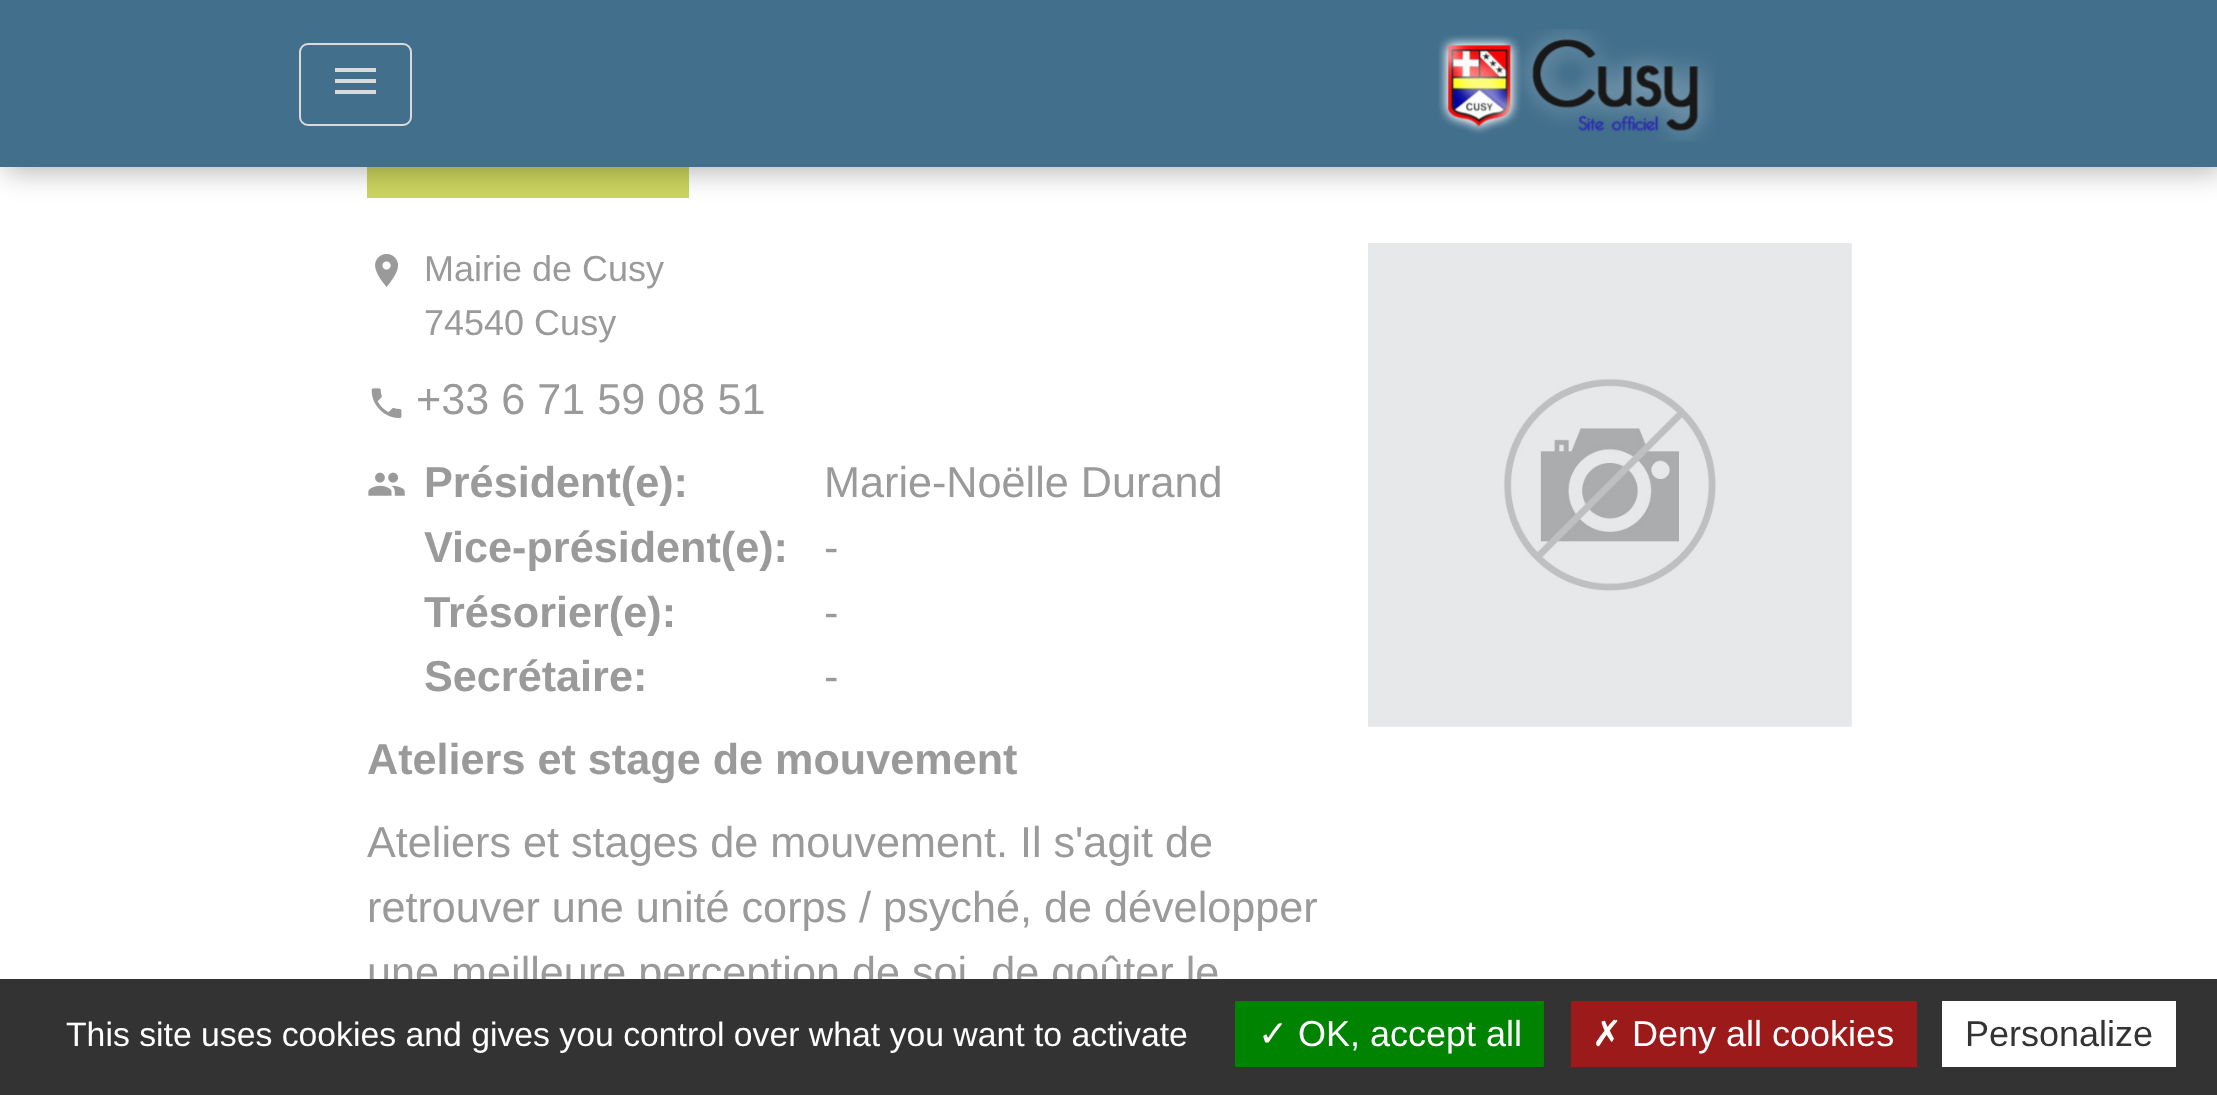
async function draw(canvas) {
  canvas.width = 2217
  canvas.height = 1095
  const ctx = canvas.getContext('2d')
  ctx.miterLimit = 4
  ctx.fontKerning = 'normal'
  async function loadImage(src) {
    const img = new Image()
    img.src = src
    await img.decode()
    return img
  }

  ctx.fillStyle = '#fff'
  ctx.fillRect(0, 0, 2217, 1095)
  ctx.fillStyle = '#ccd55d'
  ctx.fillRect(367, 167, 322, 31)
  ctx.fillStyle = '#0000004d'
  ctx.filter = 'blur(14.5px)'
  ctx.beginPath()
  ctx.rect(5, 5, 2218, 166)
  ctx.fill()
  ctx.filter = 'none'
  ctx.fillStyle = '#426f8c'
  ctx.fillRect(0, 0, 2217, 167)
  ctx.beginPath()
  ctx.roundRect(300, 44, 111, 81, 8)
  ctx.strokeStyle = '#dadada'
  ctx.lineWidth = 2
  ctx.stroke()
  ctx.fillStyle = '#dadada'
  ctx.beginPath()
  ctx.moveTo(335, 68)
  ctx.lineTo(376, 68)
  ctx.lineTo(376, 72)
  ctx.lineTo(335, 72)
  ctx.closePath()
  ctx.moveTo(335, 83)
  ctx.lineTo(335, 79)
  ctx.lineTo(376, 79)
  ctx.lineTo(376, 83)
  ctx.closePath()
  ctx.moveTo(335, 94)
  ctx.lineTo(335, 90)
  ctx.lineTo(376, 90)
  ctx.lineTo(376, 94)
  ctx.closePath()
  ctx.fill()
  ctx.drawImage(await loadImage('image0.png'), 1438, 29, 278, 113)
  ctx.drawImage(await loadImage('image1.png'), 375, 254, 24, 33)
  ctx.font = '36px Liberation Sans'
  ctx.fillStyle = '#9a9a9a'
  ctx.fillText('Mairie de Cusy', 424, 281)
  ctx.fillText('74540 Cusy', 424, 335)
  ctx.drawImage(await loadImage('image2.png'), 371, 388, 31, 30)
  ctx.font = '43.2px Liberation Sans'
  ctx.fillText('+33 6 71 59 08 51', 416, 414)
  ctx.drawImage(await loadImage('image3.png'), 368, 472, 37, 24)
  ctx.font = 'bold 43.2px Liberation Sans'
  ctx.fillText('Président(e):', 424, 497)
  ctx.fillText('Vice-président(e):', 424, 562)
  ctx.fillText('Trésorier(e):', 424, 627)
  ctx.fillText('Secrétaire:', 424, 691)
  ctx.font = '43.2px Liberation Sans'
  ctx.fillText('Marie-Noëlle Durand', 824, 497)
  ctx.fillText('-', 824, 562)
  ctx.fillText('-', 824, 627)
  ctx.fillText('-', 824, 691)
  ctx.font = 'bold 43.2px Liberation Sans'
  ctx.fillText('Ateliers et stage de mouvement', 367, 774)
  ctx.font = '43.2px Liberation Sans'
  ctx.fillText('Ateliers et stages de mouvement. Il s\'agit de', 367, 857)
  ctx.fillText('retrouver une unité corps / psyché, de développer', 367, 922)
  ctx.fillText('une meilleure perception de soi, de goûter le', 367, 987)
  ctx.drawImage(await loadImage('image4.png'), 1368, 243, 484, 484)
  ctx.fillStyle = '#333'
  ctx.fillRect(0, 979, 2217, 116)
  ctx.font = '33.75px Liberation Sans'
  ctx.fillStyle = '#fff'
  ctx.fillText('This site uses cookies and gives you control over what you want to activate', 66, 1046)
  ctx.fillStyle = '#008300'
  ctx.fillRect(1235, 1001, 309, 66)
  ctx.font = '36px DejaVu Sans'
  ctx.fillStyle = '#fff'
  ctx.fillText('✓', 1258, 1046)
  ctx.font = '36px Liberation Sans'
  ctx.fillText('OK, accept all', 1298, 1046)
  ctx.fillStyle = '#9c1a1a'
  ctx.fillRect(1571, 1001, 346, 66)
  ctx.font = '36px DejaVu Sans'
  ctx.fillStyle = '#fff'
  ctx.fillText('✗', 1592, 1046)
  ctx.font = '36px Liberation Sans'
  ctx.fillText('Deny all cookies', 1632, 1046)
  ctx.fillRect(1942, 1001, 234, 66)
  ctx.fillStyle = '#333'
  ctx.fillText('Personalize', 1965, 1046)
}

draw(document.querySelector('canvas'))
